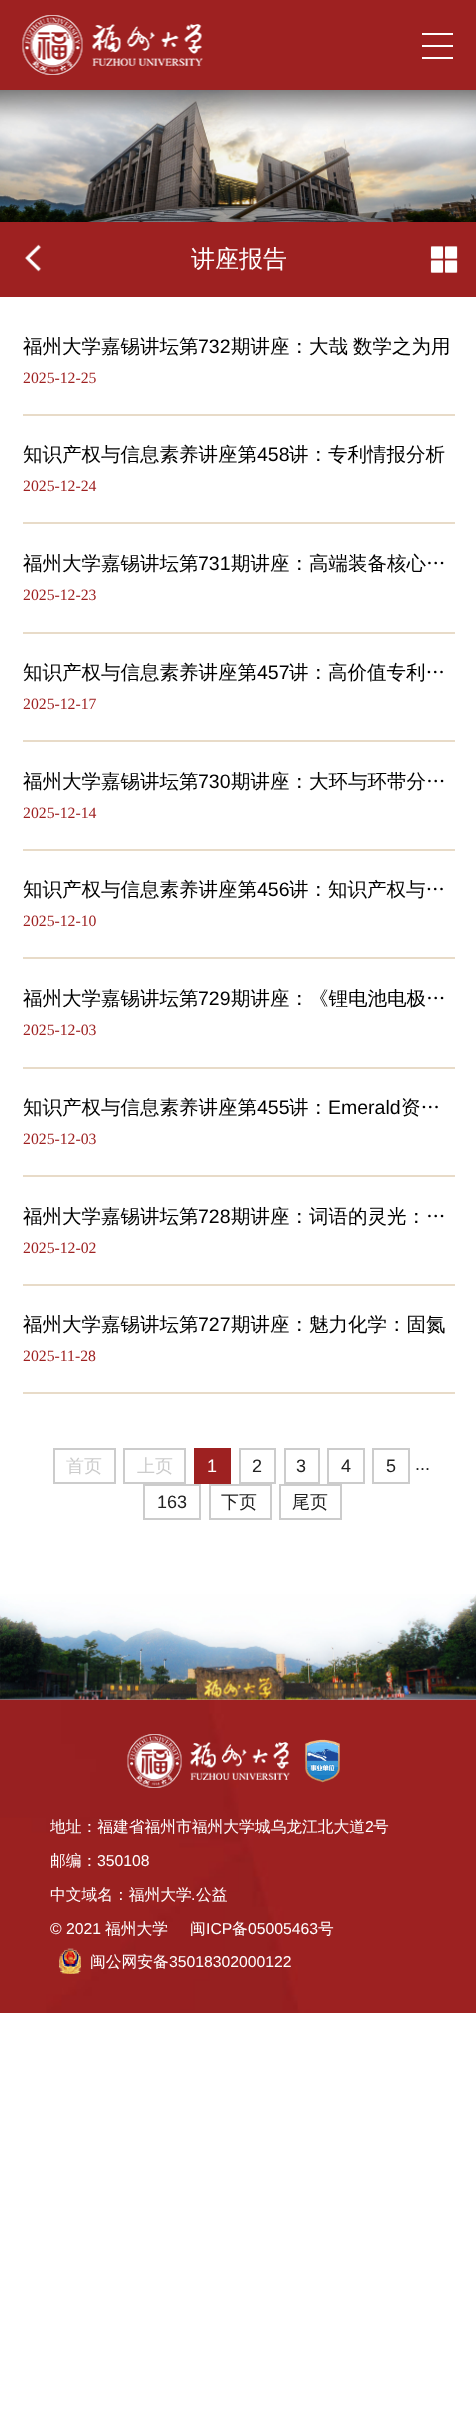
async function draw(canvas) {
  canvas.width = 476
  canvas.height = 2429
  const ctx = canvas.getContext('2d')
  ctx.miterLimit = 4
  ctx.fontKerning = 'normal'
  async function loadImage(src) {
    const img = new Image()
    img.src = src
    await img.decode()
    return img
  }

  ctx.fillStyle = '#fff'
  ctx.fillRect(0, 0, 476, 2429)
  ctx.fillStyle = '#9e2121'
  ctx.fillRect(0, 0, 476, 90)
  ctx.drawImage(await loadImage('image0.png'), 22, 15, 181, 60)
  ctx.fillStyle = '#fff'
  ctx.fillRect(422, 45, 31, 2)
  ctx.fillRect(422, 33, 31, 2)
  ctx.fillRect(422, 57, 31, 2)
  ctx.drawImage(await loadImage('image1.png'), 0, 90, 476, 132)
  ctx.fillStyle = '#9e2121'
  ctx.fillRect(0, 222, 476, 75)
  ctx.drawImage(await loadImage('image2.png'), 25, 244, 17, 28)
  ctx.font = '500 24px WenQuanYi Zen Hei'
  ctx.fillStyle = '#fff'
  ctx.fillText('讲座报告', 191, 267)
  ctx.drawImage(await loadImage('image3.png'), 430, 246, 28, 27)
  ctx.drawImage(await loadImage('image5.png'), 0, 1699, 476, 314)
  ctx.drawImage(await loadImage('image4.png'), 0, 1594, 476, 106)
  ctx.fillStyle = '#e8dbc8'
  ctx.fillRect(23, 414, 432, 2)
  ctx.font = '500 19.5px WenQuanYi Zen Hei'
  ctx.fillStyle = '#000'
  ctx.fillText('福州大学嘉锡讲坛第', 23, 353)
  ctx.font = '19.5px Liberation Sans'
  ctx.fillText('732', 198, 353)
  ctx.font = '500 19.5px WenQuanYi Zen Hei'
  ctx.fillText('期讲座：大哉', 231, 353)
  ctx.fillText('数学之为用', 353, 353)
  ctx.font = '15.75px Liberation Serif'
  ctx.fillStyle = '#9e2121'
  ctx.fillText('2025-12-25', 23, 383)
  ctx.fillStyle = '#e8dbc8'
  ctx.fillRect(23, 522, 432, 2)
  ctx.font = '500 19.5px WenQuanYi Zen Hei'
  ctx.fillStyle = '#000'
  ctx.fillText('知识产权与信息素养讲座第', 23, 461)
  ctx.font = '19.5px Liberation Sans'
  ctx.fillText('458', 257, 461)
  ctx.font = '500 19.5px WenQuanYi Zen Hei'
  ctx.fillText('讲：专利情报分析', 289, 461)
  ctx.font = '15.75px Liberation Serif'
  ctx.fillStyle = '#9e2121'
  ctx.fillText('2025-12-24', 23, 491)
  ctx.fillStyle = '#e8dbc8'
  ctx.fillRect(23, 632, 432, 2)
  ctx.font = '500 19.5px WenQuanYi Zen Hei'
  ctx.fillStyle = '#000'
  ctx.fillText('福州大学嘉锡讲坛第', 23, 570)
  ctx.font = '19.5px Liberation Sans'
  ctx.fillText('731', 198, 570)
  ctx.font = '500 19.5px WenQuanYi Zen Hei'
  ctx.fillText('期讲座：高端装备核心…', 231, 570)
  ctx.font = '15.75px Liberation Serif'
  ctx.fillStyle = '#9e2121'
  ctx.fillText('2025-12-23', 23, 600)
  ctx.fillStyle = '#e8dbc8'
  ctx.fillRect(23, 740, 432, 2)
  ctx.font = '500 19.5px WenQuanYi Zen Hei'
  ctx.fillStyle = '#000'
  ctx.fillText('知识产权与信息素养讲座第', 23, 679)
  ctx.font = '19.5px Liberation Sans'
  ctx.fillText('457', 257, 679)
  ctx.font = '500 19.5px WenQuanYi Zen Hei'
  ctx.fillText('讲：高价值专利…', 289, 679)
  ctx.font = '15.75px Liberation Serif'
  ctx.fillStyle = '#9e2121'
  ctx.fillText('2025-12-17', 23, 709)
  ctx.fillStyle = '#e8dbc8'
  ctx.fillRect(23, 849, 432, 2)
  ctx.font = '500 19.5px WenQuanYi Zen Hei'
  ctx.fillStyle = '#000'
  ctx.fillText('福州大学嘉锡讲坛第', 23, 788)
  ctx.font = '19.5px Liberation Sans'
  ctx.fillText('730', 198, 788)
  ctx.font = '500 19.5px WenQuanYi Zen Hei'
  ctx.fillText('期讲座：大环与环带分…', 231, 788)
  ctx.font = '15.75px Liberation Serif'
  ctx.fillStyle = '#9e2121'
  ctx.fillText('2025-12-14', 23, 818)
  ctx.fillStyle = '#e8dbc8'
  ctx.fillRect(23, 957, 432, 2)
  ctx.font = '500 19.5px WenQuanYi Zen Hei'
  ctx.fillStyle = '#000'
  ctx.fillText('知识产权与信息素养讲座第', 23, 896)
  ctx.font = '19.5px Liberation Sans'
  ctx.fillText('456', 257, 896)
  ctx.font = '500 19.5px WenQuanYi Zen Hei'
  ctx.fillText('讲：知识产权与…', 289, 896)
  ctx.font = '15.75px Liberation Serif'
  ctx.fillStyle = '#9e2121'
  ctx.fillText('2025-12-10', 23, 926)
  ctx.fillStyle = '#e8dbc8'
  ctx.fillRect(23, 1067, 432, 2)
  ctx.font = '500 19.5px WenQuanYi Zen Hei'
  ctx.fillStyle = '#000'
  ctx.fillText('福州大学嘉锡讲坛第', 23, 1005)
  ctx.font = '19.5px Liberation Sans'
  ctx.fillText('729', 198, 1005)
  ctx.font = '500 19.5px WenQuanYi Zen Hei'
  ctx.fillText('期讲座：《锂电池电极…', 231, 1005)
  ctx.font = '15.75px Liberation Serif'
  ctx.fillStyle = '#9e2121'
  ctx.fillText('2025-12-03', 23, 1035)
  ctx.fillStyle = '#e8dbc8'
  ctx.fillRect(23, 1175, 432, 2)
  ctx.font = '500 19.5px WenQuanYi Zen Hei'
  ctx.fillStyle = '#000'
  ctx.fillText('知识产权与信息素养讲座第', 23, 1114)
  ctx.font = '19.5px Liberation Sans'
  ctx.fillText('455', 257, 1114)
  ctx.font = '500 19.5px WenQuanYi Zen Hei'
  ctx.fillText('讲：', 289, 1114)
  ctx.font = '19.5px Liberation Sans'
  ctx.fillText('Emerald', 328, 1114)
  ctx.font = '500 19.5px WenQuanYi Zen Hei'
  ctx.fillText('资…', 401, 1114)
  ctx.font = '15.75px Liberation Serif'
  ctx.fillStyle = '#9e2121'
  ctx.fillText('2025-12-03', 23, 1144)
  ctx.fillStyle = '#e8dbc8'
  ctx.fillRect(23, 1284, 432, 2)
  ctx.font = '500 19.5px WenQuanYi Zen Hei'
  ctx.fillStyle = '#000'
  ctx.fillText('福州大学嘉锡讲坛第', 23, 1223)
  ctx.font = '19.5px Liberation Sans'
  ctx.fillText('728', 198, 1223)
  ctx.font = '500 19.5px WenQuanYi Zen Hei'
  ctx.fillText('期讲座：词语的灵光：…', 231, 1223)
  ctx.font = '15.75px Liberation Serif'
  ctx.fillStyle = '#9e2121'
  ctx.fillText('2025-12-02', 23, 1253)
  ctx.fillStyle = '#e8dbc8'
  ctx.fillRect(23, 1392, 432, 2)
  ctx.font = '500 19.5px WenQuanYi Zen Hei'
  ctx.fillStyle = '#000'
  ctx.fillText('福州大学嘉锡讲坛第', 23, 1331)
  ctx.font = '19.5px Liberation Sans'
  ctx.fillText('727', 198, 1331)
  ctx.font = '500 19.5px WenQuanYi Zen Hei'
  ctx.fillText('期讲座：魅力化学：固氮', 231, 1331)
  ctx.font = '15.75px Liberation Serif'
  ctx.fillStyle = '#9e2121'
  ctx.fillText('2025-11-28', 23, 1361)
  ctx.strokeStyle = '#ccc'
  ctx.lineWidth = 2
  ctx.strokeRect(54, 1449, 61, 34)
  ctx.font = '500 18px WenQuanYi Zen Hei'
  ctx.fillStyle = '#ccc'
  ctx.fillText('首页', 66, 1472)
  ctx.strokeRect(124, 1449, 61, 34)
  ctx.fillText('上页', 137, 1472)
  ctx.fillStyle = '#9e2121'
  ctx.fillRect(194, 1448, 37, 36)
  ctx.font = '18px Liberation Sans'
  ctx.fillStyle = '#fff'
  ctx.fillText('1', 207, 1472)
  ctx.strokeRect(240, 1449, 35, 34)
  ctx.fillStyle = '#222'
  ctx.fillText('2', 252, 1472)
  ctx.strokeRect(285, 1449, 34, 34)
  ctx.fillText('3', 296, 1472)
  ctx.strokeRect(328, 1449, 36, 34)
  ctx.fillText('4', 341, 1472)
  ctx.strokeRect(373, 1449, 36, 34)
  ctx.fillText('5', 386, 1472)
  ctx.fillText('...', 415, 1470)
  ctx.strokeRect(144, 1485, 56, 34)
  ctx.fillText('163', 157, 1508)
  ctx.strokeRect(210, 1485, 61, 34)
  ctx.font = '500 18px WenQuanYi Zen Hei'
  ctx.fillText('下页', 221, 1508)
  ctx.strokeRect(280, 1485, 61, 34)
  ctx.fillText('尾页', 292, 1508)
  ctx.drawImage(await loadImage('image6.png'), 127, 1734, 163, 54)
  ctx.drawImage(await loadImage('image7.png'), 305, 1739, 35, 44)
  ctx.font = '500 15.75px WenQuanYi Zen Hei'
  ctx.fillStyle = '#fff'
  ctx.fillText('地址：福建省福州市福州大学城乌龙江北大道', 50, 1832)
  ctx.font = '15.75px Liberation Sans'
  ctx.fillText('2', 365, 1832)
  ctx.font = '500 15.75px WenQuanYi Zen Hei'
  ctx.fillText('号', 373, 1832)
  ctx.fillText('邮编：', 50, 1866)
  ctx.font = '15.75px Liberation Sans'
  ctx.fillText('350108', 97, 1866)
  ctx.font = '500 15.75px WenQuanYi Zen Hei'
  ctx.fillText('中文域名：福州大学', 50, 1900)
  ctx.font = '15.75px Liberation Sans'
  ctx.fillText('.', 191, 1900)
  ctx.font = '500 15.75px WenQuanYi Zen Hei'
  ctx.fillText('公益', 196, 1900)
  ctx.font = '15.75px Liberation Sans'
  ctx.fillText('© 2021', 50, 1934)
  ctx.font = '500 15.75px WenQuanYi Zen Hei'
  ctx.fillText('福州大学', 105, 1934)
  ctx.fillText('闽', 190, 1934)
  ctx.font = '15.75px Liberation Sans'
  ctx.fillText('ICP', 206, 1934)
  ctx.font = '500 15.75px WenQuanYi Zen Hei'
  ctx.fillText('备', 232, 1934)
  ctx.font = '15.75px Liberation Sans'
  ctx.fillText('05005463', 248, 1934)
  ctx.font = '500 15.75px WenQuanYi Zen Hei'
  ctx.fillText('号', 318, 1934)
  ctx.drawImage(await loadImage('image8.png'), 59, 1948, 22, 26)
  ctx.fillText('闽公网安备', 90, 1967)
  ctx.font = '15.75px Liberation Sans'
  ctx.fillText('35018302000122', 169, 1967)
}

draw(document.querySelector('canvas'))
